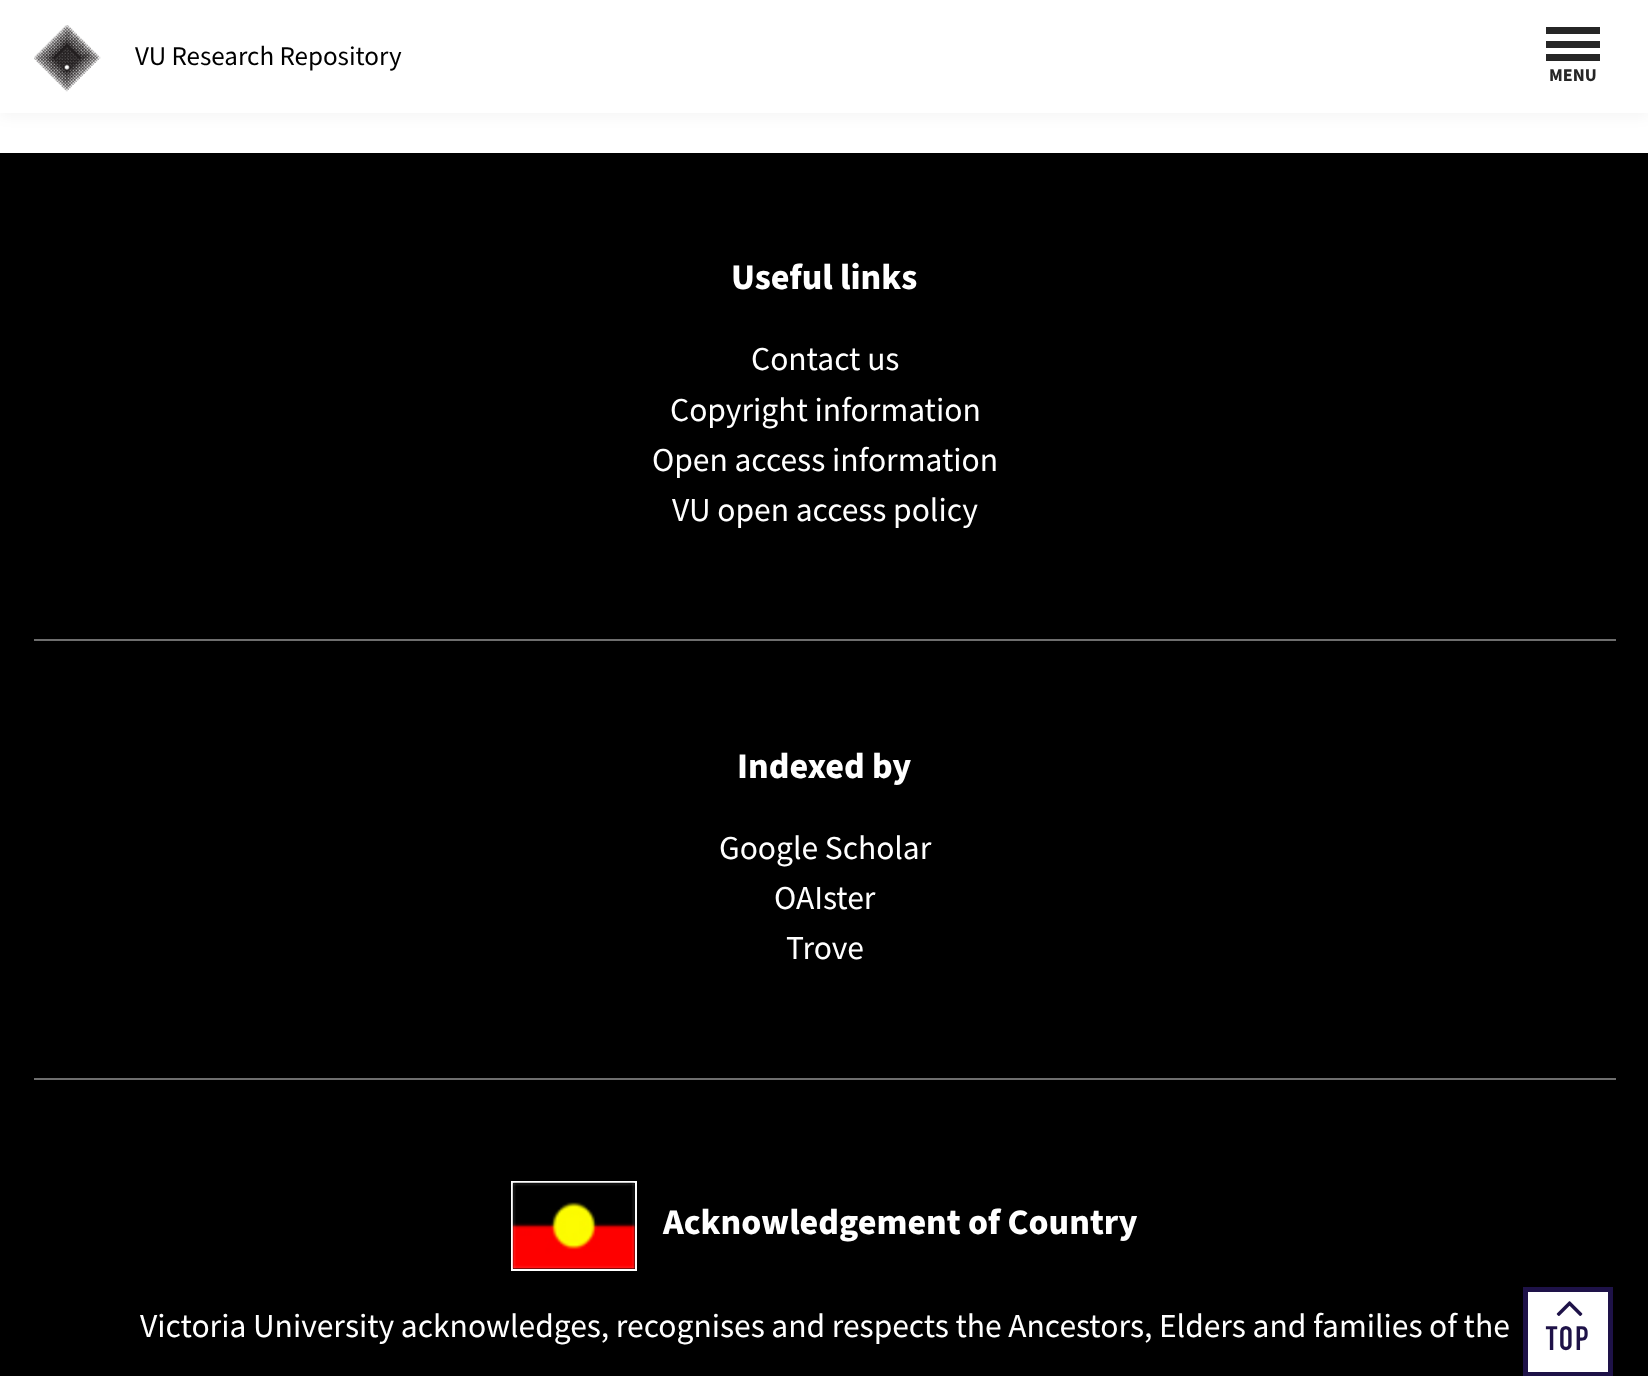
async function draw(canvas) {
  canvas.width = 1648
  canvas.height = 1376
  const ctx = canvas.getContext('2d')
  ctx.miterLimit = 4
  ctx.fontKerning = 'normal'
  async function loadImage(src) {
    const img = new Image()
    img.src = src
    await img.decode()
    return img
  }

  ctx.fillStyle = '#fff'
  ctx.fillRect(0, 0, 1648, 1376)
  ctx.fillStyle = '#0000000a'
  ctx.filter = 'blur(7px)'
  ctx.beginPath()
  ctx.rect(0, 5, 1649, 112)
  ctx.fill()
  ctx.filter = 'none'
  ctx.fillStyle = '#fff'
  ctx.fillRect(0, 0, 1648, 113)
  ctx.drawImage(await loadImage('image0.png'), 34, 25, 67, 67)
  ctx.font = '27px Source Sans Pro'
  ctx.fillStyle = '#000'
  ctx.fillText('VU Research Repository', 135, 65)
  ctx.fillStyle = '#262626'
  ctx.fillRect(1546, 27, 54, 7)
  ctx.fillRect(1546, 41, 54, 7)
  ctx.fillRect(1546, 54, 54, 7)
  ctx.font = 'bold 18px Source Sans Pro'
  ctx.fillText('MENU', 1549, 81)
  ctx.fillStyle = '#000'
  ctx.fillRect(0, 153, 1648, 1223)
  ctx.fillStyle = '#6e6e6e'
  ctx.fillRect(34, 639, 1582, 2)
  ctx.font = 'bold 36px Source Sans Pro'
  ctx.fillStyle = '#fff'
  ctx.fillText('Useful links', 731, 289)
  ctx.font = '33.5px Source Sans Pro'
  ctx.fillText('Contact us', 751, 370)
  ctx.fillText('Copyright information', 670, 421)
  ctx.fillText('Open access information', 652, 471)
  ctx.fillText('VU open access policy', 672, 521)
  ctx.fillStyle = '#6e6e6e'
  ctx.fillRect(34, 1078, 1582, 2)
  ctx.font = 'bold 36px Source Sans Pro'
  ctx.fillStyle = '#fff'
  ctx.fillText('Indexed by', 737, 778)
  ctx.font = '33.5px Source Sans Pro'
  ctx.fillText('Google Scholar', 719, 859)
  ctx.fillText('OAIster', 774, 909)
  ctx.fillText('Trove', 786, 959)
  ctx.strokeStyle = '#fff'
  ctx.lineWidth = 2
  ctx.strokeRect(512, 1182, 124, 88)
  ctx.drawImage(await loadImage('image1.png'), 512, 1182, 123, 87)
  ctx.font = 'bold 36px Source Sans Pro'
  ctx.fillText('Acknowledgement of Country', 663, 1234)
  ctx.wordSpacing = '-0.1px'
  ctx.font = '33.5px Source Sans Pro'
  ctx.fillText('Victoria University acknowledges, recognises and respects the Ancestors, Elders and families of the', 140, 1337)
  ctx.beginPath()
  ctx.rect(1525.5, 1289.5, 85, 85)
  ctx.fill()
  ctx.strokeStyle = '#1e1248'
  ctx.lineWidth = 5
  ctx.stroke()
  ctx.drawImage(await loadImage('image2.png'), 1556, 1301, 27, 15)
  ctx.letterSpacing = '2px'
  ctx.wordSpacing = '0px'
  ctx.font = '33.5px "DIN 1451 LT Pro"'
  ctx.fillStyle = '#1e1248'
  ctx.fillText('TOP', 1546, 1350)
}

draw(document.querySelector('canvas'))
